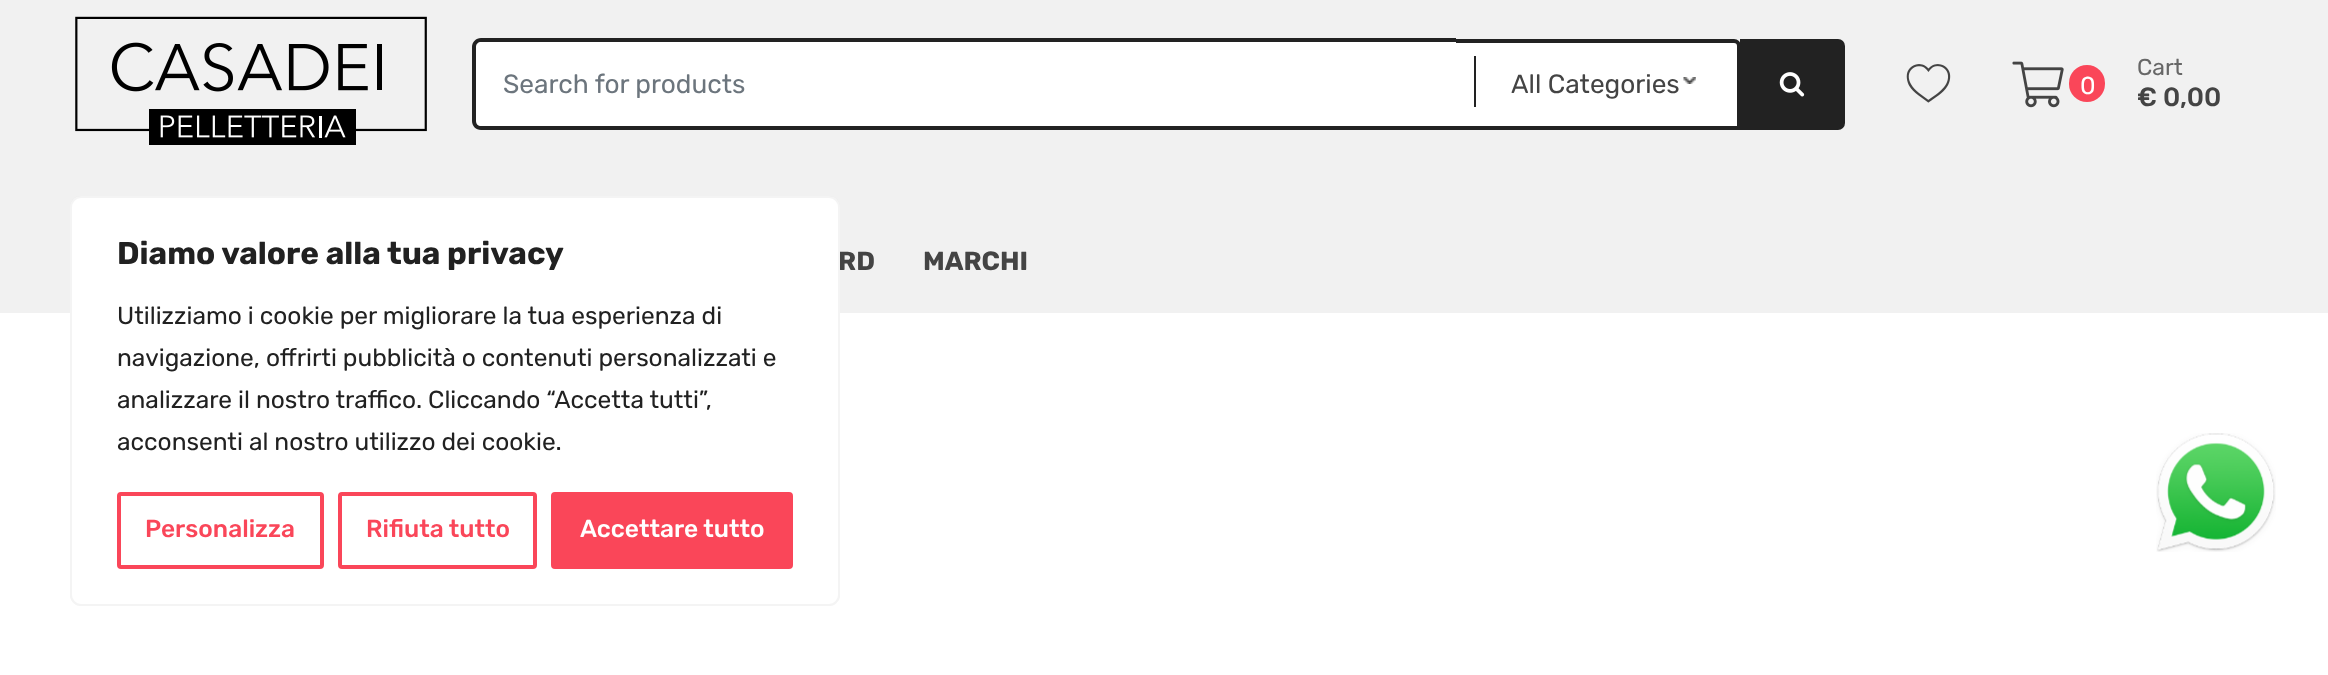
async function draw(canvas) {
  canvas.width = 2328
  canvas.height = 675
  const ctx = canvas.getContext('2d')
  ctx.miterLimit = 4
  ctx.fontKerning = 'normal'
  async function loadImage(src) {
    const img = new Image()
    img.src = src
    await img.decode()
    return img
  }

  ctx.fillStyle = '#fff'
  ctx.fillRect(0, 0, 2328, 675)
  ctx.fillStyle = '#f1f1f1'
  ctx.fillRect(0, 0, 2328, 313)
  ctx.drawImage(await loadImage('image0.png'), 75, 16, 352, 129)
  ctx.fillStyle = '#fff'
  ctx.beginPath()
  ctx.roundRect(1451, 41, 288, 87, [5, 5, 0, 0])
  ctx.fill()
  ctx.strokeStyle = '#222'
  ctx.lineWidth = 4
  ctx.stroke()
  ctx.beginPath()
  ctx.roundRect(476, 42, 980, 84, [5, 0, 0, 5])
  ctx.fill()
  ctx.fillStyle = '#222'
  ctx.beginPath()
  ctx.moveTo(481, 38)
  ctx.lineTo(1456, 38)
  ctx.lineTo(1456, 130)
  ctx.lineTo(481, 130)
  ctx.bezierCurveTo(476, 130, 472, 126, 472, 121)
  ctx.lineTo(472, 47)
  ctx.bezierCurveTo(472, 42, 476, 38, 481, 38)
  ctx.closePath()
  ctx.moveTo(481, 42)
  ctx.lineTo(1456, 42)
  ctx.lineTo(1456, 126)
  ctx.lineTo(481, 126)
  ctx.bezierCurveTo(478, 126, 476, 124, 476, 121)
  ctx.lineTo(476, 47)
  ctx.bezierCurveTo(476, 44, 478, 42, 481, 42)
  ctx.closePath()
  ctx.fill('evenodd')
  ctx.font = '26.25px Rubik'
  ctx.fillStyle = '#6c757d'
  ctx.fillText('Search for products', 503, 93)
  ctx.drawImage(await loadImage('image1.png'), 1683, 77, 13, 7)
  ctx.fillStyle = '#222'
  ctx.fillRect(1474, 56, 2, 51)
  ctx.fillStyle = '#444'
  ctx.fillText('All Categories', 1511, 93)
  ctx.fillStyle = '#222'
  ctx.beginPath()
  ctx.roundRect(1740, 39, 105, 91, [0, 7, 7, 0])
  ctx.fill()
  ctx.drawImage(await loadImage('image2.png'), 1779, 72, 26, 25)
  ctx.drawImage(await loadImage('image3.png'), 1906, 64, 45, 39)
  ctx.drawImage(await loadImage('image4.png'), 2012, 61, 52, 47)
  ctx.fillStyle = '#fa4659'
  ctx.beginPath()
  ctx.roundRect(2069, 65, 36, 37, 18)
  ctx.fill()
  ctx.letterSpacing = '-2px'
  ctx.font = '24.5px Rubik'
  ctx.fillStyle = '#fff'
  ctx.fillText('0', 2080, 94)
  ctx.letterSpacing = '0px'
  ctx.font = '23px Rubik'
  ctx.fillStyle = '#676767'
  ctx.fillText('Cart', 2137, 75)
  ctx.font = '500 26.25px Rubik'
  ctx.fillStyle = '#444'
  ctx.fillText('€ 0,00', 2137, 106)
  ctx.font = 'bold 26.25px Rubik'
  ctx.fillText('RD', 838, 270)
  ctx.fillText('MARCHI', 923, 270)
  ctx.save()
  ctx.beginPath()
  ctx.roundRect(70, 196, 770, 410, 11)
  ctx.clip()
  ctx.fillStyle = '#acabab4d'
  ctx.filter = 'blur(9px)'
  ctx.beginPath()
  ctx.roundRect(70, 194, 770, 410, 11)
  ctx.fill()
  ctx.filter = 'none'
  ctx.restore()
  ctx.fillStyle = '#fff'
  ctx.beginPath()
  ctx.roundRect(71, 197, 768, 408, 10)
  ctx.fill()
  ctx.strokeStyle = '#f4f4f4'
  ctx.lineWidth = 2
  ctx.stroke()
  ctx.font = 'bold 31.5px Rubik'
  ctx.fillStyle = '#212121'
  ctx.fillText('Diamo valore alla tua privacy', 117, 264)
  ctx.font = '24.5px Rubik'
  ctx.fillText('Utilizziamo i cookie per migliorare la tua esperienza di', 117, 324)
  ctx.fillText('navigazione, offrirti pubblicità o contenuti personalizzati e', 117, 366)
  ctx.fillText('analizzare il nostro traffico. Cliccando “Accetta tutti”,', 117, 408)
  ctx.fillText('acconsenti al nostro utilizzo dei cookie.', 117, 450)
  ctx.beginPath()
  ctx.roundRect(119, 494, 203, 73, 2)
  ctx.strokeStyle = '#fa4659'
  ctx.lineWidth = 4
  ctx.stroke()
  ctx.font = '500 24.5px Rubik'
  ctx.fillStyle = '#fa4659'
  ctx.fillText('Personalizza', 145, 537)
  ctx.beginPath()
  ctx.roundRect(340, 494, 195, 73, 2)
  ctx.stroke()
  ctx.fillText('Rifiuta tutto', 366, 537)
  ctx.beginPath()
  ctx.roundRect(553, 494, 238, 73, 2)
  ctx.fill()
  ctx.stroke()
  ctx.fillStyle = '#fff'
  ctx.fillText('Accettare tutto', 580, 537)
  ctx.drawImage(await loadImage('image5.png'), 2156, 433, 120, 119)
}

draw(document.querySelector('canvas'))
